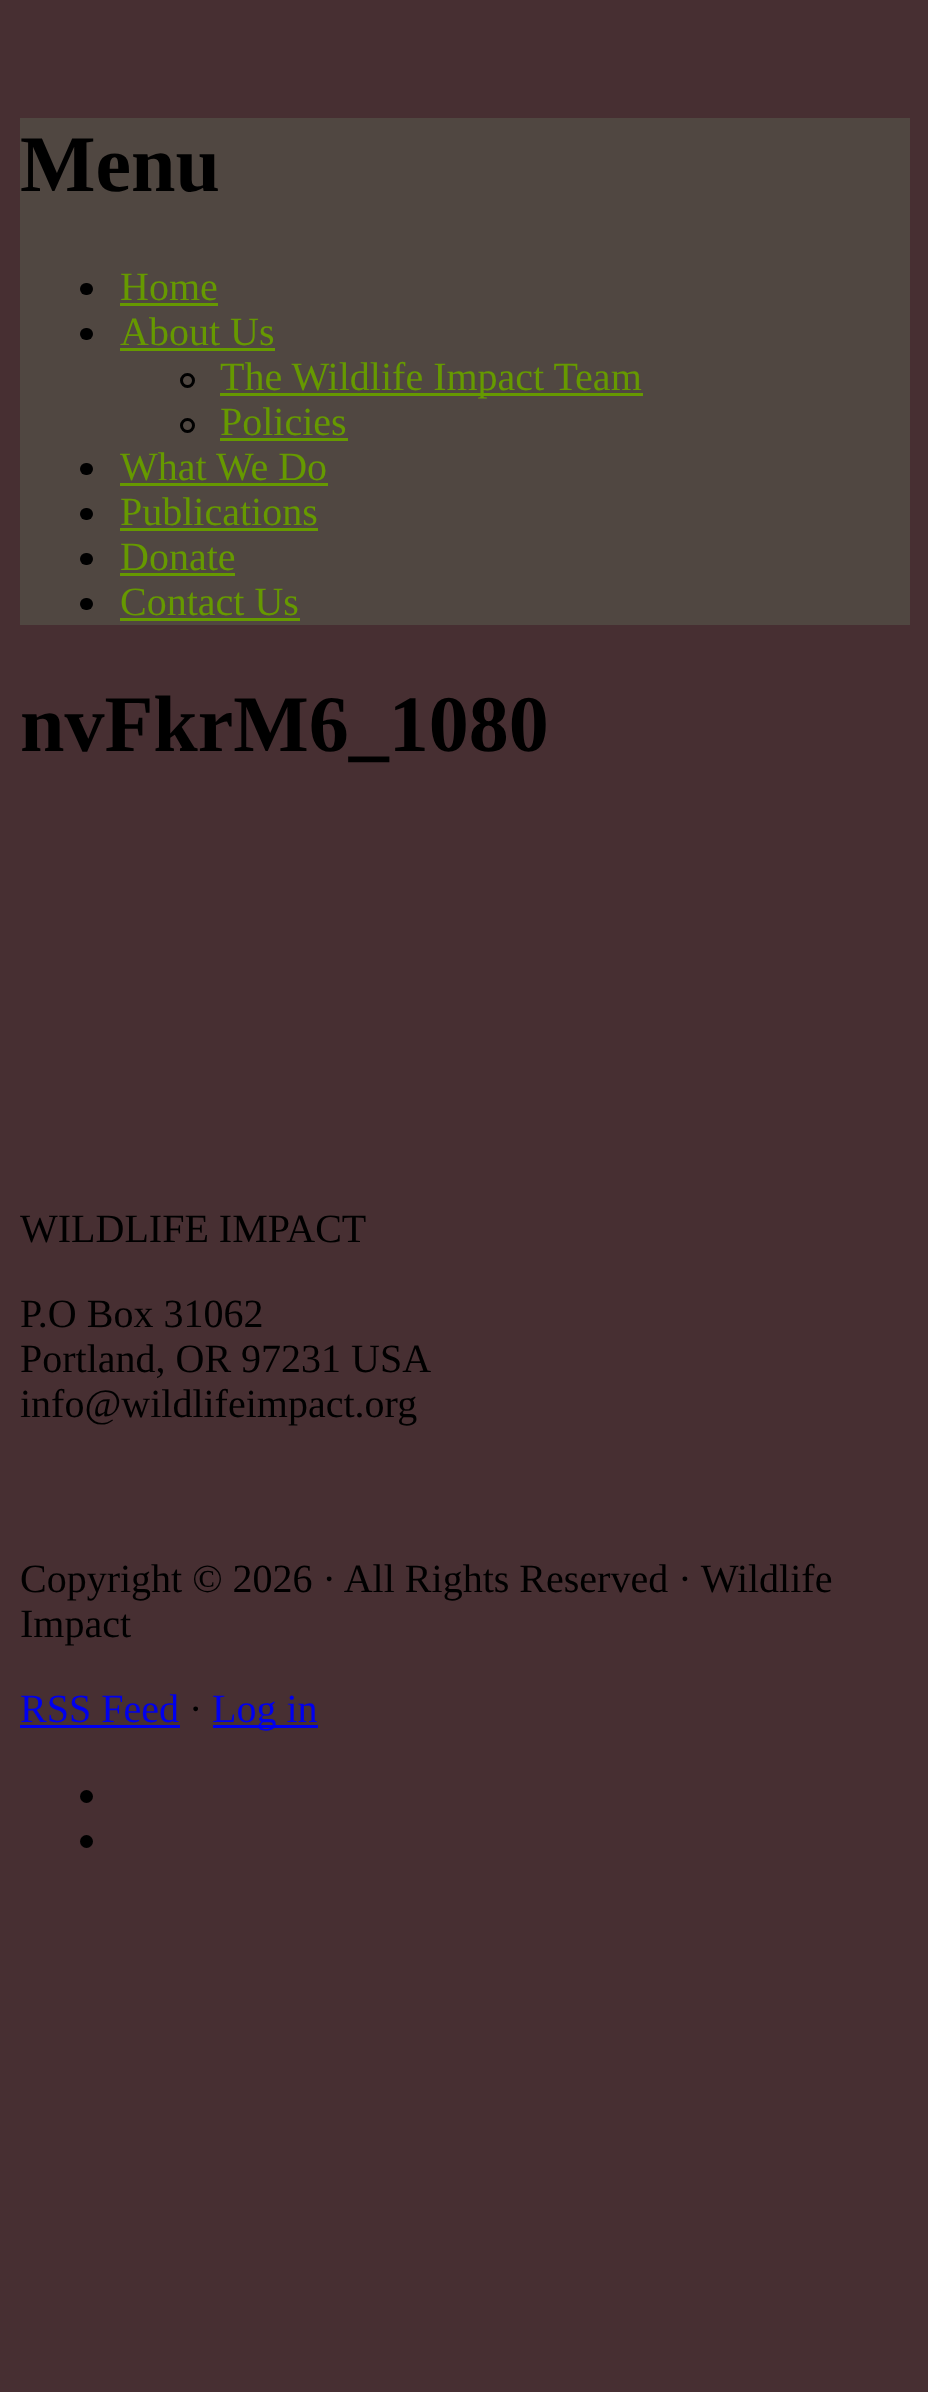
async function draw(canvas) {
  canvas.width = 928
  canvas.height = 2392
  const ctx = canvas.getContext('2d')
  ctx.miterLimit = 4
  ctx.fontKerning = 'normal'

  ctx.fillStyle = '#472f32'
  ctx.fillRect(0, 0, 928, 2392)
  ctx.fillStyle = '#504741'
  ctx.fillRect(20, 118, 890, 507)
  ctx.font = 'bold 80px Liberation Serif'
  ctx.fillStyle = '#000'
  ctx.fillText('Menu', 20, 191)
  ctx.beginPath()
  ctx.roundRect(80, 283, 13, 12, 6)
  ctx.fill()
  ctx.font = '40px Liberation Serif'
  ctx.fillStyle = '#690'
  ctx.fillText('Home', 120, 300)
  ctx.fillRect(120, 303, 98, 3)
  ctx.fillStyle = '#000'
  ctx.beginPath()
  ctx.roundRect(80, 328, 13, 12, 6)
  ctx.fill()
  ctx.fillStyle = '#690'
  ctx.fillText('About Us', 120, 345)
  ctx.fillRect(120, 348, 155, 3)
  ctx.beginPath()
  ctx.arc(187.5, 380.5, 6, 0, 2 * Math.PI)
  ctx.strokeStyle = '#000'
  ctx.lineWidth = 3
  ctx.stroke()
  ctx.fillRect(220, 393, 423, 3)
  ctx.fillText('The Wildlife Impact Team', 220, 390)
  ctx.beginPath()
  ctx.arc(187.5, 425.5, 6, 0, 2 * Math.PI)
  ctx.stroke()
  ctx.fillText('Policies', 220, 435)
  ctx.fillRect(220, 438, 128, 3)
  ctx.fillStyle = '#000'
  ctx.beginPath()
  ctx.roundRect(80, 463, 13, 12, 6)
  ctx.fill()
  ctx.fillStyle = '#690'
  ctx.fillText('What We Do', 120, 480)
  ctx.fillRect(120, 483, 208, 3)
  ctx.fillStyle = '#000'
  ctx.beginPath()
  ctx.roundRect(80, 508, 13, 12, 6)
  ctx.fill()
  ctx.fillStyle = '#690'
  ctx.fillText('Publications', 120, 525)
  ctx.fillRect(120, 528, 198, 3)
  ctx.fillStyle = '#000'
  ctx.beginPath()
  ctx.roundRect(80, 553, 13, 12, 6)
  ctx.fill()
  ctx.fillStyle = '#690'
  ctx.fillText('Donate', 120, 570)
  ctx.fillRect(120, 573, 115, 3)
  ctx.fillStyle = '#000'
  ctx.beginPath()
  ctx.roundRect(80, 598, 13, 12, 6)
  ctx.fill()
  ctx.fillStyle = '#690'
  ctx.fillText('Contact Us', 120, 615)
  ctx.fillRect(120, 618, 180, 3)
  ctx.font = 'bold 80px Liberation Serif'
  ctx.fillStyle = '#000'
  ctx.fillText('nvFkrM6_1080', 20, 751)
  ctx.font = '40px Liberation Serif'
  ctx.fillText('WILDLIFE IMPACT', 20, 1242)
  ctx.fillText('P.O Box 31062', 20, 1327)
  ctx.fillText('Portland, OR 97231 USA', 20, 1372)
  ctx.fillText('info@wildlifeimpact.org', 20, 1417)
  ctx.fillText('Copyright © 2026 · All Rights Reserved · Wildlife', 20, 1592)
  ctx.fillText('Impact', 20, 1637)
  ctx.fillStyle = '#00e'
  ctx.fillText('RSS Feed', 20, 1722)
  ctx.fillRect(20, 1725, 160, 3)
  ctx.fillStyle = '#000'
  ctx.fillText('·', 189, 1722)
  ctx.fillStyle = '#00e'
  ctx.fillRect(213, 1725, 105, 3)
  ctx.fillText('Log in', 212, 1722)
  ctx.fillStyle = '#000'
  ctx.beginPath()
  ctx.arc(86.5, 1796.5, 6.5, 0, 2 * Math.PI)
  ctx.fill()
  ctx.beginPath()
  ctx.arc(86.5, 1841.5, 6.5, 0, 2 * Math.PI)
  ctx.fill()
}

draw(document.querySelector('canvas'))
